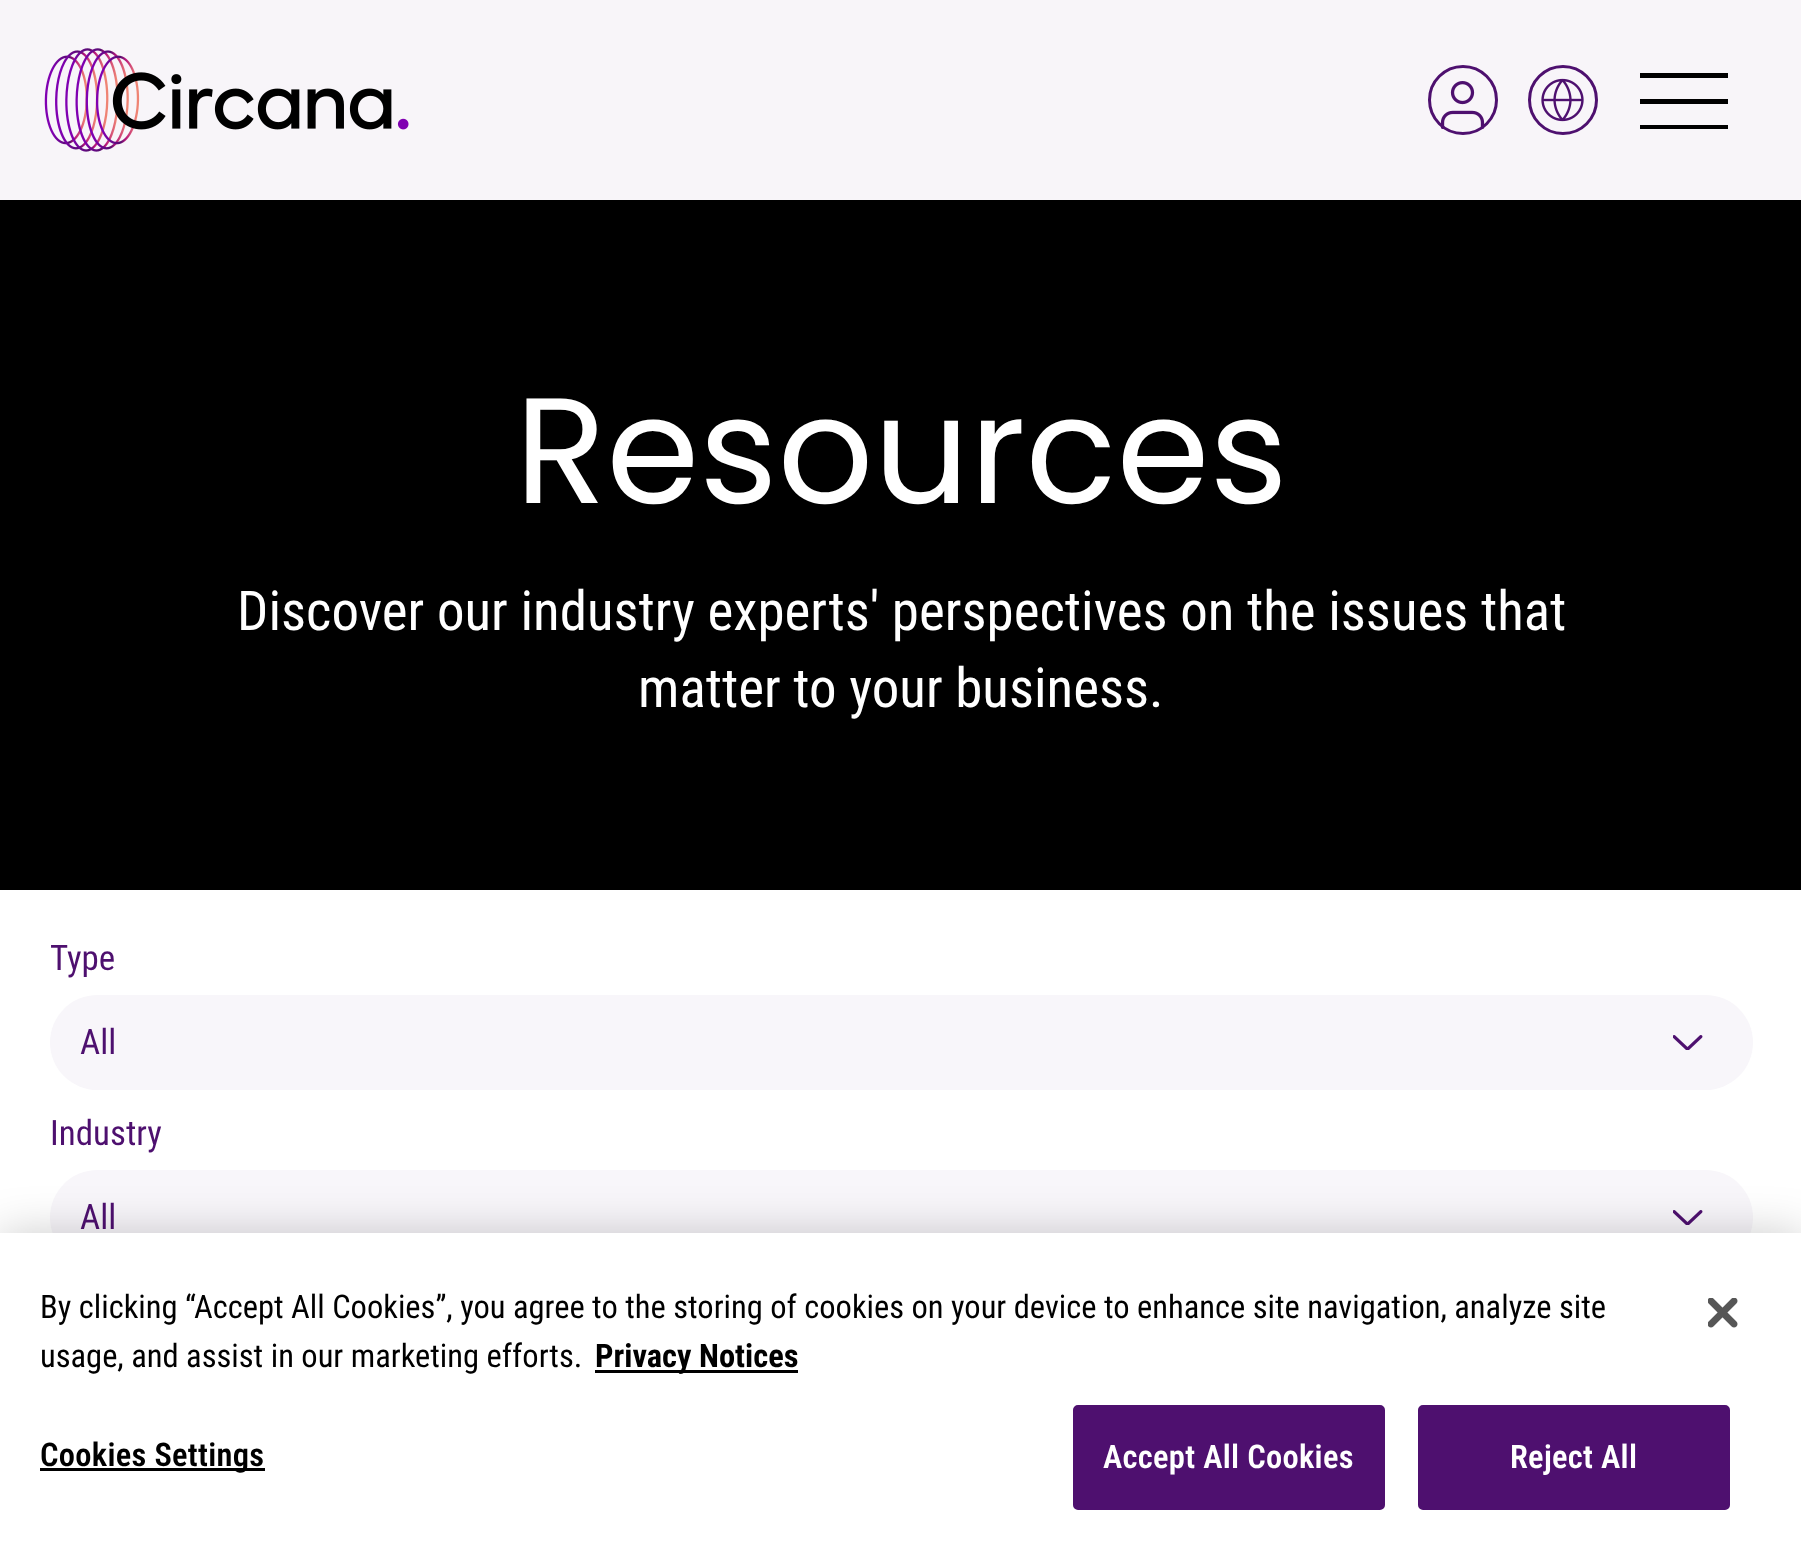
async function draw(canvas) {
  canvas.width = 1801
  canvas.height = 1559
  const ctx = canvas.getContext('2d')
  ctx.miterLimit = 4
  ctx.fontKerning = 'normal'
  async function loadImage(src) {
    const img = new Image()
    img.src = src
    await img.decode()
    return img
  }

  ctx.fillStyle = '#fff'
  ctx.fillRect(0, 0, 1801, 1559)
  ctx.fillStyle = '#f8f5f9'
  ctx.fillRect(0, 0, 1801, 200)
  ctx.drawImage(await loadImage('image0.png'), 44, 48, 365, 104)
  ctx.beginPath()
  ctx.arc(1463, 100, 33.5, 0, 2 * Math.PI)
  ctx.strokeStyle = '#4e106f'
  ctx.lineWidth = 3
  ctx.stroke()
  ctx.drawImage(await loadImage('image1.png'), 1440, 81, 45, 48)
  ctx.beginPath()
  ctx.arc(1563, 100, 33.5, 0, 2 * Math.PI)
  ctx.stroke()
  ctx.drawImage(await loadImage('image2.png'), 1541, 78, 43, 44)
  ctx.fillStyle = '#000'
  ctx.fillRect(1640, 73, 88, 5)
  ctx.fillRect(1640, 99, 88, 5)
  ctx.fillRect(1640, 125, 88, 4)
  ctx.fillRect(0, 200, 1801, 690)
  ctx.font = '150px Poppins'
  ctx.fillStyle = '#fff'
  ctx.fillText('Resources', 515, 503)
  ctx.font = '55px Roboto Condensed'
  ctx.fillText('Discover our industry experts\' perspectives on the issues that', 237, 630)
  ctx.fillText('matter to your business.', 638, 707)
  ctx.font = '35px Roboto Condensed'
  ctx.fillStyle = '#4e106f'
  ctx.fillText('Type', 50, 970)
  ctx.fillStyle = '#f8f6fa'
  ctx.beginPath()
  ctx.roundRect(50, 995, 1703, 95, 47.5)
  ctx.fill()
  ctx.fillStyle = '#4e106f'
  ctx.fillText('All', 80, 1054)
  ctx.drawImage(await loadImage('image3.png'), 1673, 1035, 30, 15)
  ctx.fillText('Industry', 50, 1145)
  ctx.fillStyle = '#f8f6fa'
  ctx.beginPath()
  ctx.roundRect(50, 1170, 1703, 95, 47.5)
  ctx.fill()
  ctx.fillStyle = '#4e106f'
  ctx.fillText('All', 80, 1229)
  ctx.drawImage(await loadImage('image3.png'), 1673, 1210, 30, 15)
  ctx.fillStyle = '#00000033'
  ctx.filter = 'blur(22.5px)'
  ctx.beginPath()
  ctx.rect(0, 1233, 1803, 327)
  ctx.fill()
  ctx.filter = 'none'
  ctx.fillStyle = '#fff'
  ctx.fillRect(0, 1233, 1801, 326)
  ctx.font = '32.5px "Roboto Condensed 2"'
  ctx.fillStyle = '#000'
  ctx.fillText('By clicking “Accept All Cookies”, you agree to the storing of cookies on your device to enhance site navigation, analyze site', 40, 1318)
  ctx.fillText('usage, and assist in our marketing efforts.', 40, 1367)
  ctx.fillRect(595, 1370, 203, 3)
  ctx.font = 'bold 32.5px Roboto Condensed'
  ctx.fillText('Privacy Notices', 595, 1367)
  ctx.fillRect(40, 1468, 225, 3)
  ctx.letterSpacing = '0.3px'
  ctx.font = '600 32.5px Roboto Condensed'
  ctx.fillText('Cookies Settings', 40, 1466)
  ctx.fillStyle = '#4e106f'
  ctx.beginPath()
  ctx.roundRect(1074.5, 1406.5, 309, 102, 3.5)
  ctx.fill()
  ctx.stroke()
  ctx.fillStyle = '#fff'
  ctx.fillText('Accept All Cookies', 1103, 1468)
  ctx.fillStyle = '#4e106f'
  ctx.beginPath()
  ctx.roundRect(1419.5, 1406.5, 309, 102, 3.5)
  ctx.fill()
  ctx.stroke()
  ctx.fillStyle = '#fff'
  ctx.fillText('Reject All', 1510, 1468)
  ctx.drawImage(await loadImage('image4.png'), 1708, 1298, 30, 30)
}

draw(document.querySelector('canvas'))
